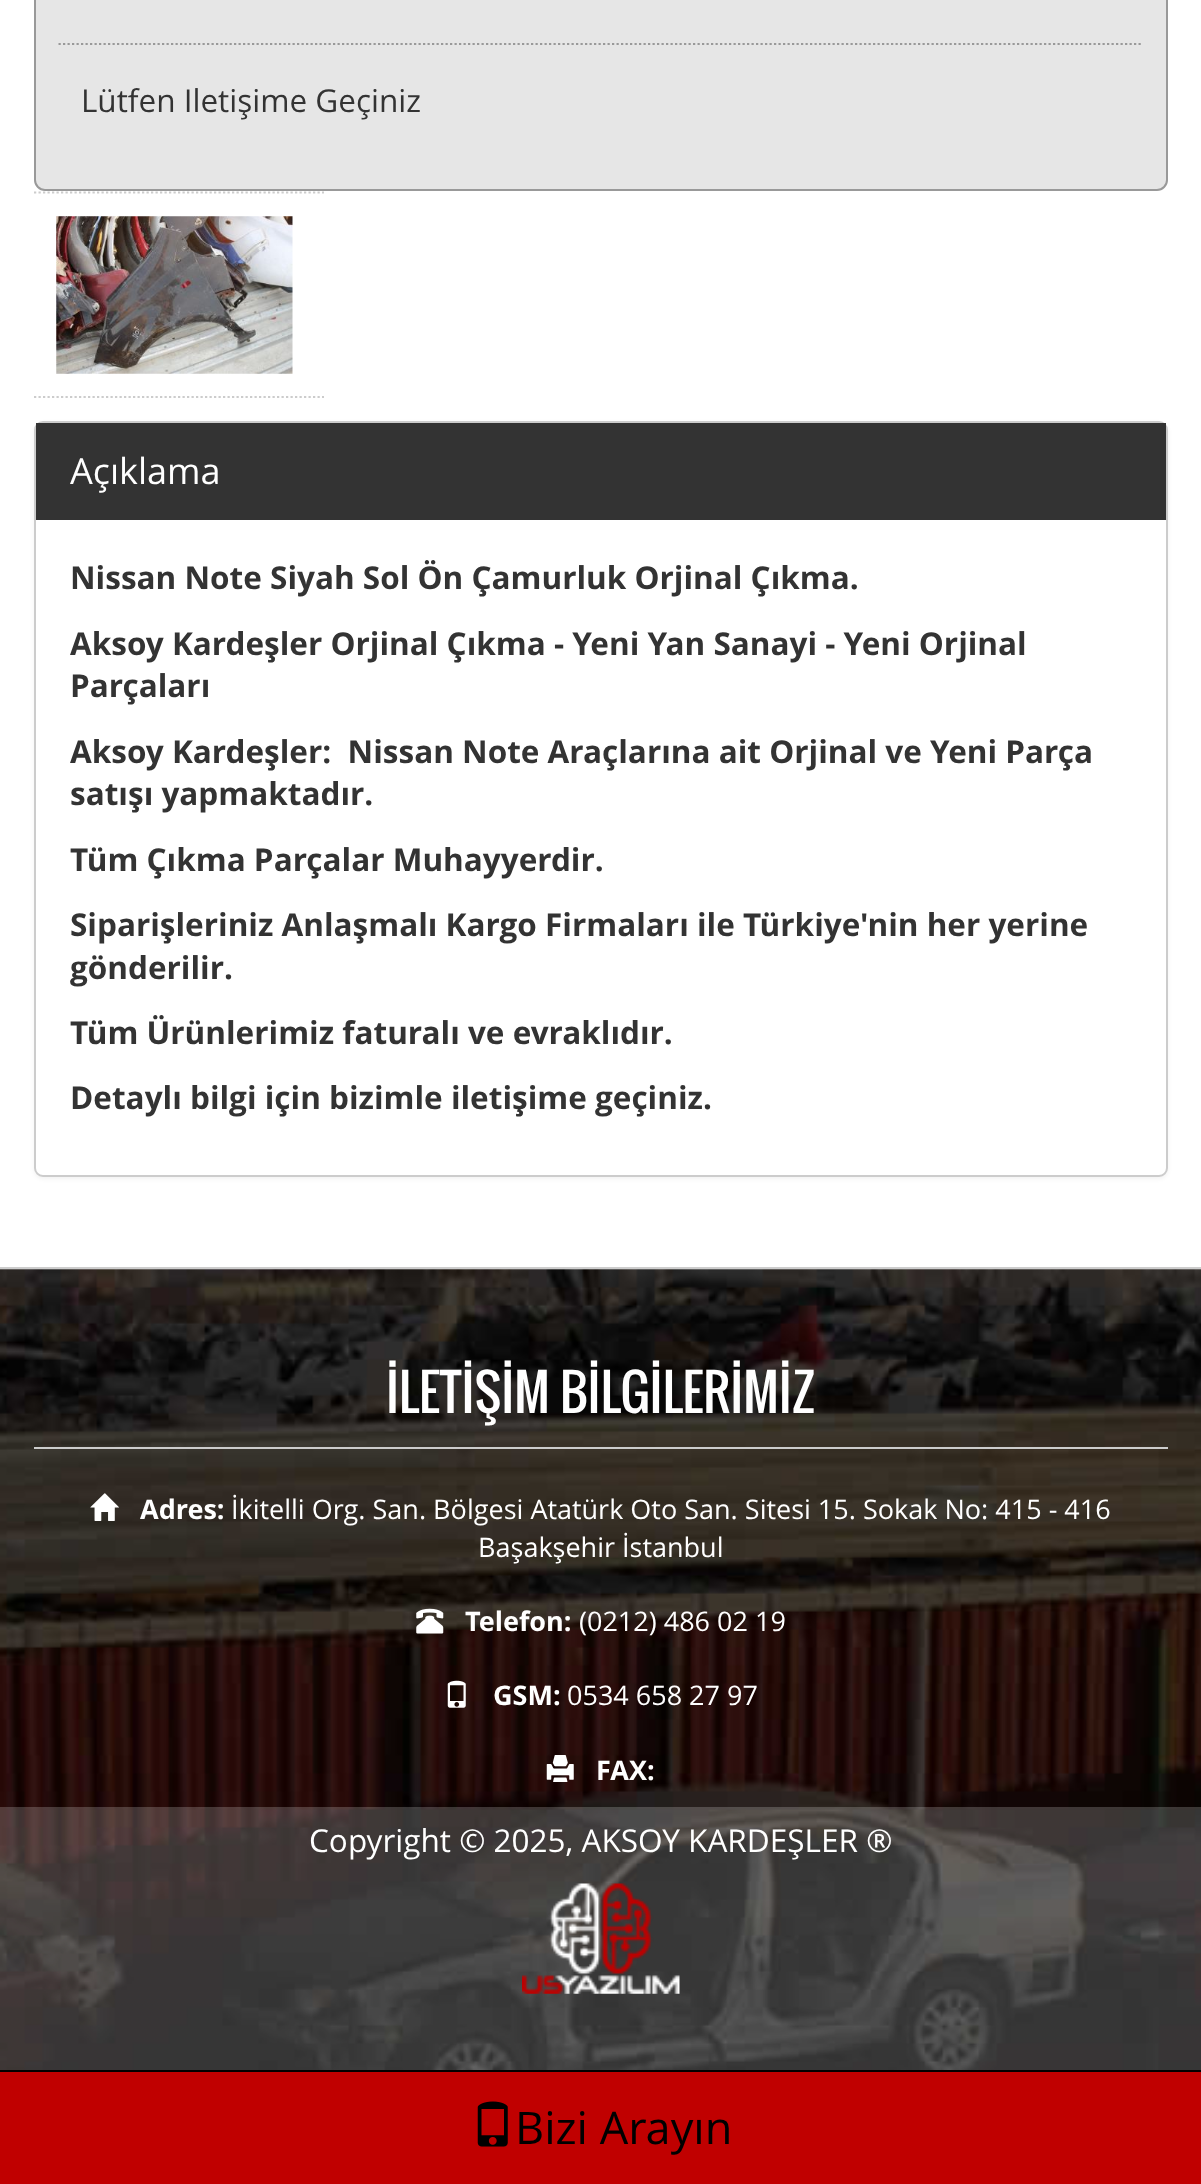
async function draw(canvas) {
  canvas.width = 1201
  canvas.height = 2184
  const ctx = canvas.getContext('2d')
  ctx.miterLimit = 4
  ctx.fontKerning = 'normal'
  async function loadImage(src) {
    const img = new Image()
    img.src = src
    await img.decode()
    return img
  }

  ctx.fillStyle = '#fff'
  ctx.fillRect(0, 0, 1201, 2184)
  ctx.fillStyle = '#e6e6e6'
  ctx.beginPath()
  ctx.roundRect(35, -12, 1132, 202, 10)
  ctx.fill()
  ctx.strokeStyle = '#999'
  ctx.lineWidth = 2
  ctx.stroke()
  ctx.beginPath()
  ctx.moveTo(58.5, 44)
  ctx.lineTo(1143, 44)
  ctx.lineWidth = 2.2
  ctx.setLineDash([2.25, 2.25])
  ctx.stroke()
  ctx.font = '31.5px Open Sans'
  ctx.fillStyle = '#333'
  ctx.fillText('Lütfen Iletişime Geçiniz', 81, 112)
  ctx.beginPath()
  ctx.moveTo(34, 192.5)
  ctx.lineTo(324, 192.5)
  ctx.strokeStyle = '#ccc'
  ctx.stroke()
  ctx.beginPath()
  ctx.moveTo(34, 397)
  ctx.lineTo(324, 397)
  ctx.stroke()
  ctx.drawImage(await loadImage('image0.png'), 56, 216, 237, 158)
  ctx.fillStyle = '#0000000d'
  ctx.filter = 'blur(2px)'
  ctx.beginPath()
  ctx.roundRect(34, 423, 1134, 756, 9)
  ctx.fill()
  ctx.filter = 'none'
  ctx.fillStyle = '#fff'
  ctx.beginPath()
  ctx.roundRect(35, 422, 1132, 754, 8)
  ctx.fill()
  ctx.lineWidth = 2
  ctx.setLineDash([])
  ctx.stroke()
  ctx.fillStyle = '#333'
  ctx.fillRect(36, 423, 1130, 97)
  ctx.font = '36px Open Sans'
  ctx.fillStyle = '#fff'
  ctx.fillText('Açıklama', 70, 484)
  ctx.font = 'bold 31.5px Open Sans'
  ctx.fillStyle = '#333'
  ctx.fillText('Nissan Note Siyah Sol Ön Çamurluk Orjinal Çıkma.', 70, 589)
  ctx.fillText('Aksoy Kardeşler Orjinal Çıkma - Yeni Yan Sanayi - Yeni Orjinal', 70, 655)
  ctx.fillText('Parçaları', 70, 697)
  ctx.fillText('Aksoy Kardeşler:  Nissan Note Araçlarına ait Orjinal ve Yeni Parça', 70, 763)
  ctx.fillText('satışı yapmaktadır.', 70, 805)
  ctx.fillText('Tüm Çıkma Parçalar Muhayyerdir.', 70, 871)
  ctx.fillText('Siparişleriniz Anlaşmalı Kargo Firmaları ile Türkiye\'nin her yerine', 70, 936)
  ctx.fillText('gönderilir.', 70, 979)
  ctx.fillText('Tüm Ürünlerimiz faturalı ve evraklıdır.', 70, 1044)
  ctx.fillText('Detaylı bilgi için bizimle iletişime geçiniz.', 70, 1109)
  ctx.drawImage(await loadImage('image1.png'), 0, 1269, 1201, 801)
  ctx.fillStyle = '#ccc'
  ctx.fillRect(0, 1267, 1201, 2)
  ctx.fillRect(34, 1447, 1134, 2)
  ctx.font = '49.5px "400"'
  ctx.fillStyle = '#fff'
  ctx.fillText('İLETİŞİM BİLGİLERİMİZ', 386, 1413)
  ctx.drawImage(await loadImage('image2.png'), 90, 1493, 29, 28)
  ctx.font = 'bold 27px Open Sans'
  ctx.fillText('Adres:', 140, 1519)
  ctx.font = '27px Open Sans'
  ctx.fillText('İkitelli Org. San. Bölgesi Atatürk Oto San. Sitesi 15. Sokak No: 415 - 416', 231, 1519)
  ctx.fillText('Başakşehir İstanbul', 478, 1557)
  ctx.drawImage(await loadImage('image3.png'), 416, 1608, 28, 26)
  ctx.font = 'bold 27px Open Sans'
  ctx.fillText('Telefon:', 465, 1631)
  ctx.font = '27px Open Sans'
  ctx.fillText('(0212) 486 02 19', 579, 1631)
  ctx.drawImage(await loadImage('image4.png'), 447, 1680, 19, 28)
  ctx.font = 'bold 27px Open Sans'
  ctx.fillText('GSM:', 493, 1705)
  ctx.font = '27px Open Sans'
  ctx.fillText('0534 658 27 97', 567, 1705)
  ctx.drawImage(await loadImage('image5.png'), 546, 1755, 28, 27)
  ctx.font = 'bold 27px Open Sans'
  ctx.fillText('FAX:', 596, 1780)
  ctx.fillStyle = '#ffffff33'
  ctx.fillRect(0, 1807, 1201, 263)
  ctx.font = '31.5px Open Sans'
  ctx.fillStyle = '#fff'
  ctx.fillText('Copyright © 2025, AKSOY KARDEŞLER ®', 309, 1852)
  ctx.drawImage(await loadImage('image6.png'), 522, 1883, 158, 111)
  ctx.fillStyle = '#c00000'
  ctx.fillRect(0, 2072, 1201, 112)
  ctx.fillStyle = '#000'
  ctx.fillRect(0, 2070, 1201, 2)
  ctx.drawImage(await loadImage('image7.png'), 477, 2101, 31, 46)
  ctx.font = '45px Open Sans'
  ctx.fillText('Bizi Arayın', 515, 2144)
}

draw(document.querySelector('canvas'))
